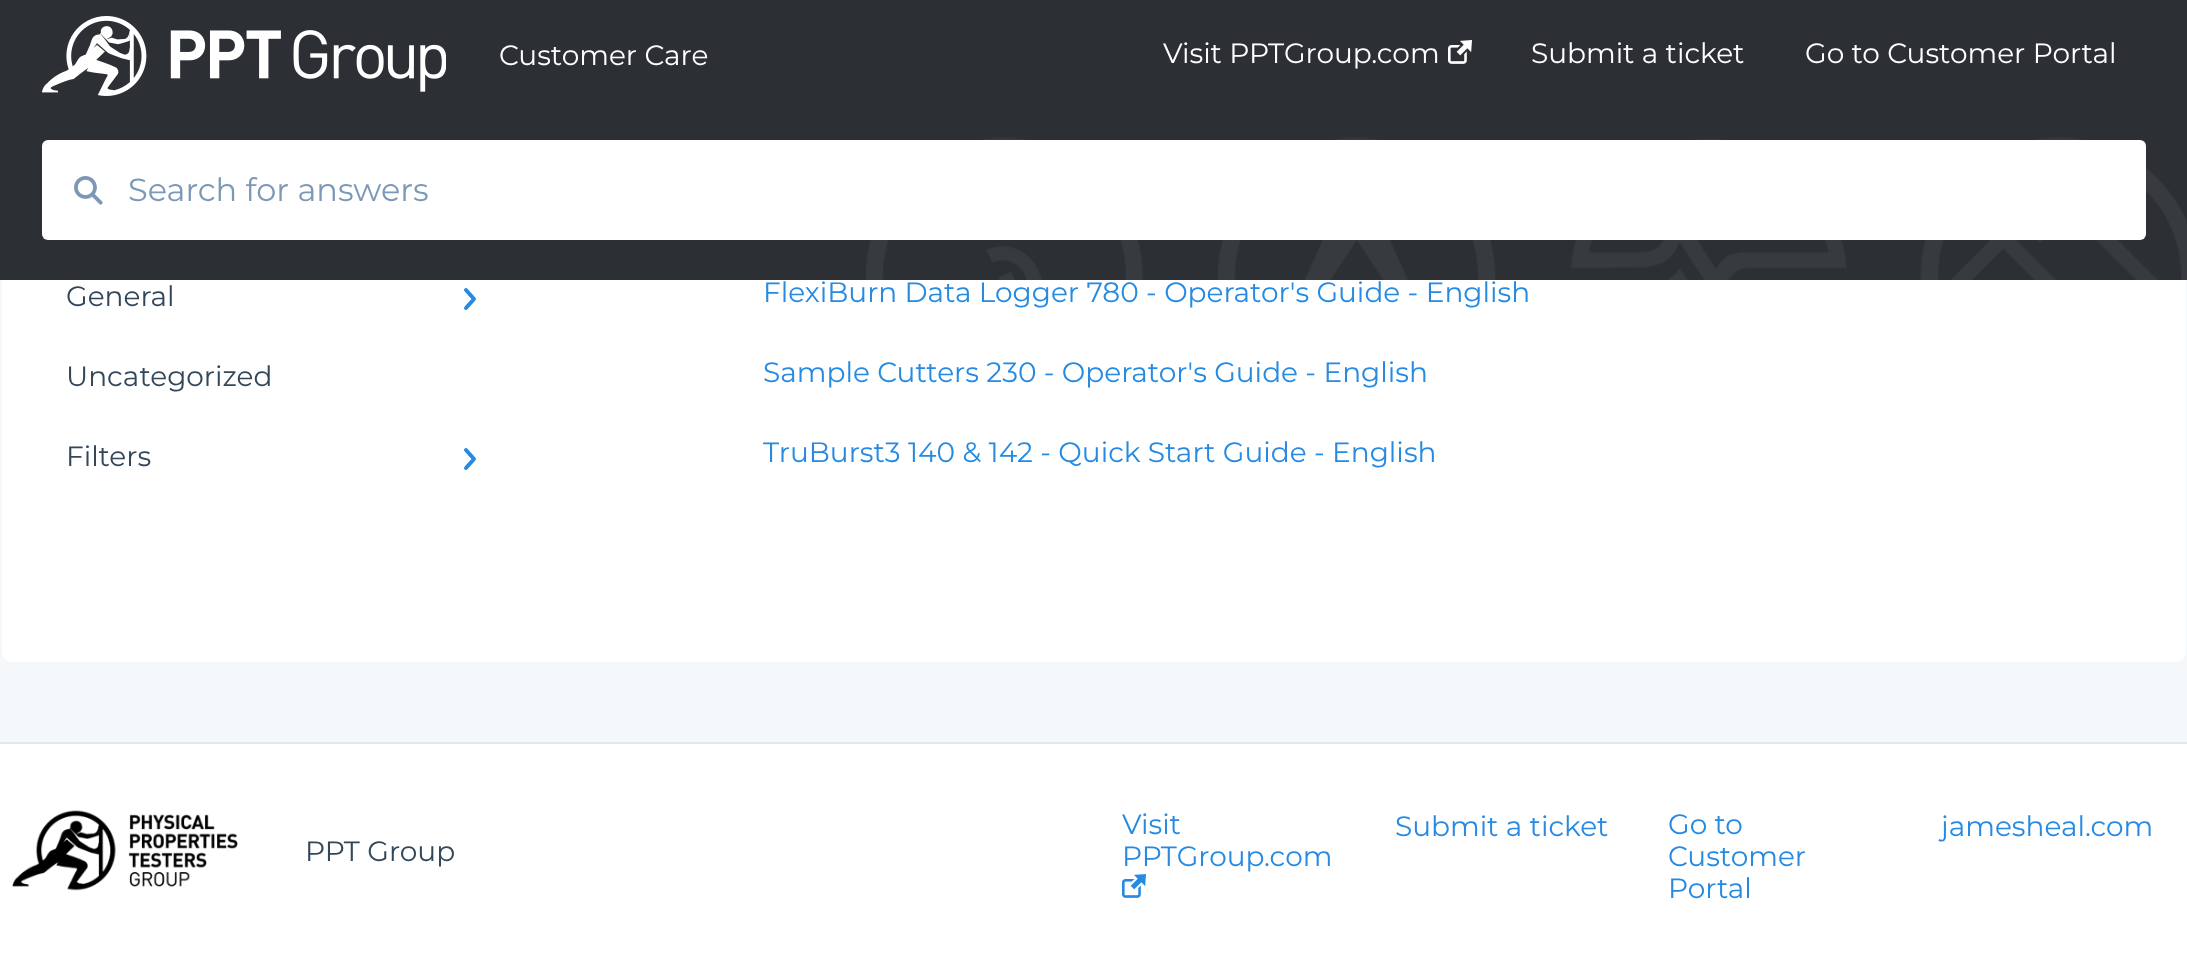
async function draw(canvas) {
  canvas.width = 2187
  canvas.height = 975
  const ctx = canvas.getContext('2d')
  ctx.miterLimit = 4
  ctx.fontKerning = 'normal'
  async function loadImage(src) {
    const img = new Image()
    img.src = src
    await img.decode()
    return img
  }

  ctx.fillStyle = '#f5f8fa'
  ctx.fillRect(0, 0, 2187, 975)
  ctx.fillStyle = '#fff'
  ctx.beginPath()
  ctx.roundRect(2, -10, 2184, 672, 10)
  ctx.fill()
  ctx.drawImage(await loadImage('image2.png'), 0, 0, 2187, 280)
  ctx.drawImage(await loadImage('image0.png'), 42, 16, 404, 80)
  ctx.font = '28px Montserrat'
  ctx.fillText('Customer Care', 499, 65)
  ctx.fillText('Visit PPTGroup.com', 1163, 63)
  ctx.drawImage(await loadImage('image1.png'), 1448, 40, 24, 24)
  ctx.fillText('Submit a ticket', 1531, 63)
  ctx.fillText('Go to Customer Portal', 1805, 63)
  ctx.beginPath()
  ctx.roundRect(42, 140, 2104, 100, 6)
  ctx.fill()
  ctx.drawImage(await loadImage('image3.png'), 74, 176, 29, 29)
  ctx.font = '32px Montserrat'
  ctx.fillStyle = '#7c98b6'
  ctx.fillText('Search for answers', 128, 201)
  ctx.font = '28px Montserrat'
  ctx.fillStyle = '#33475b'
  ctx.fillText('General', 66, 306)
  ctx.beginPath()
  ctx.moveTo(466, 290)
  ctx.lineTo(474, 299)
  ctx.lineTo(466, 308)
  ctx.strokeStyle = '#268ae2'
  ctx.lineWidth = 4
  ctx.lineCap = 'round'
  ctx.lineJoin = 'round'
  ctx.stroke()
  ctx.fillText('Uncategorized', 66, 386)
  ctx.fillText('Filters', 66, 466)
  ctx.beginPath()
  ctx.moveTo(466, 450)
  ctx.lineTo(474, 459)
  ctx.lineTo(466, 468)
  ctx.stroke()
  ctx.fillStyle = '#268ae2'
  ctx.fillText('FlexiBurn Data Logger 780 - Operator\'s Guide - English', 763, 302)
  ctx.fillText('Sample Cutters 230 - Operator\'s Guide - English', 763, 382)
  ctx.fillText('TruBurst3 140 & 142 - Quick Start Guide - English', 763, 462)
  ctx.fillStyle = '#fff'
  ctx.fillRect(0, 744, 2187, 231)
  ctx.fillStyle = '#e6e6e6'
  ctx.fillRect(0, 742, 2187, 2)
  ctx.drawImage(await loadImage('image4.png'), 12, 810, 226, 81)
  ctx.fillStyle = '#33475b'
  ctx.fillText('PPT Group', 305, 861)
  ctx.fillStyle = '#268ae2'
  ctx.fillText('Visit', 1122, 834)
  ctx.fillText('PPTGroup.com', 1122, 866)
  ctx.drawImage(await loadImage('image5.png'), 1122, 874, 24, 24)
  ctx.fillText('Submit a ticket', 1395, 836)
  ctx.fillText('Go to', 1668, 834)
  ctx.fillText('Customer', 1668, 866)
  ctx.fillText('Portal', 1668, 898)
  ctx.fillText('jamesheal.com', 1941, 836)
}

draw(document.querySelector('canvas'))
